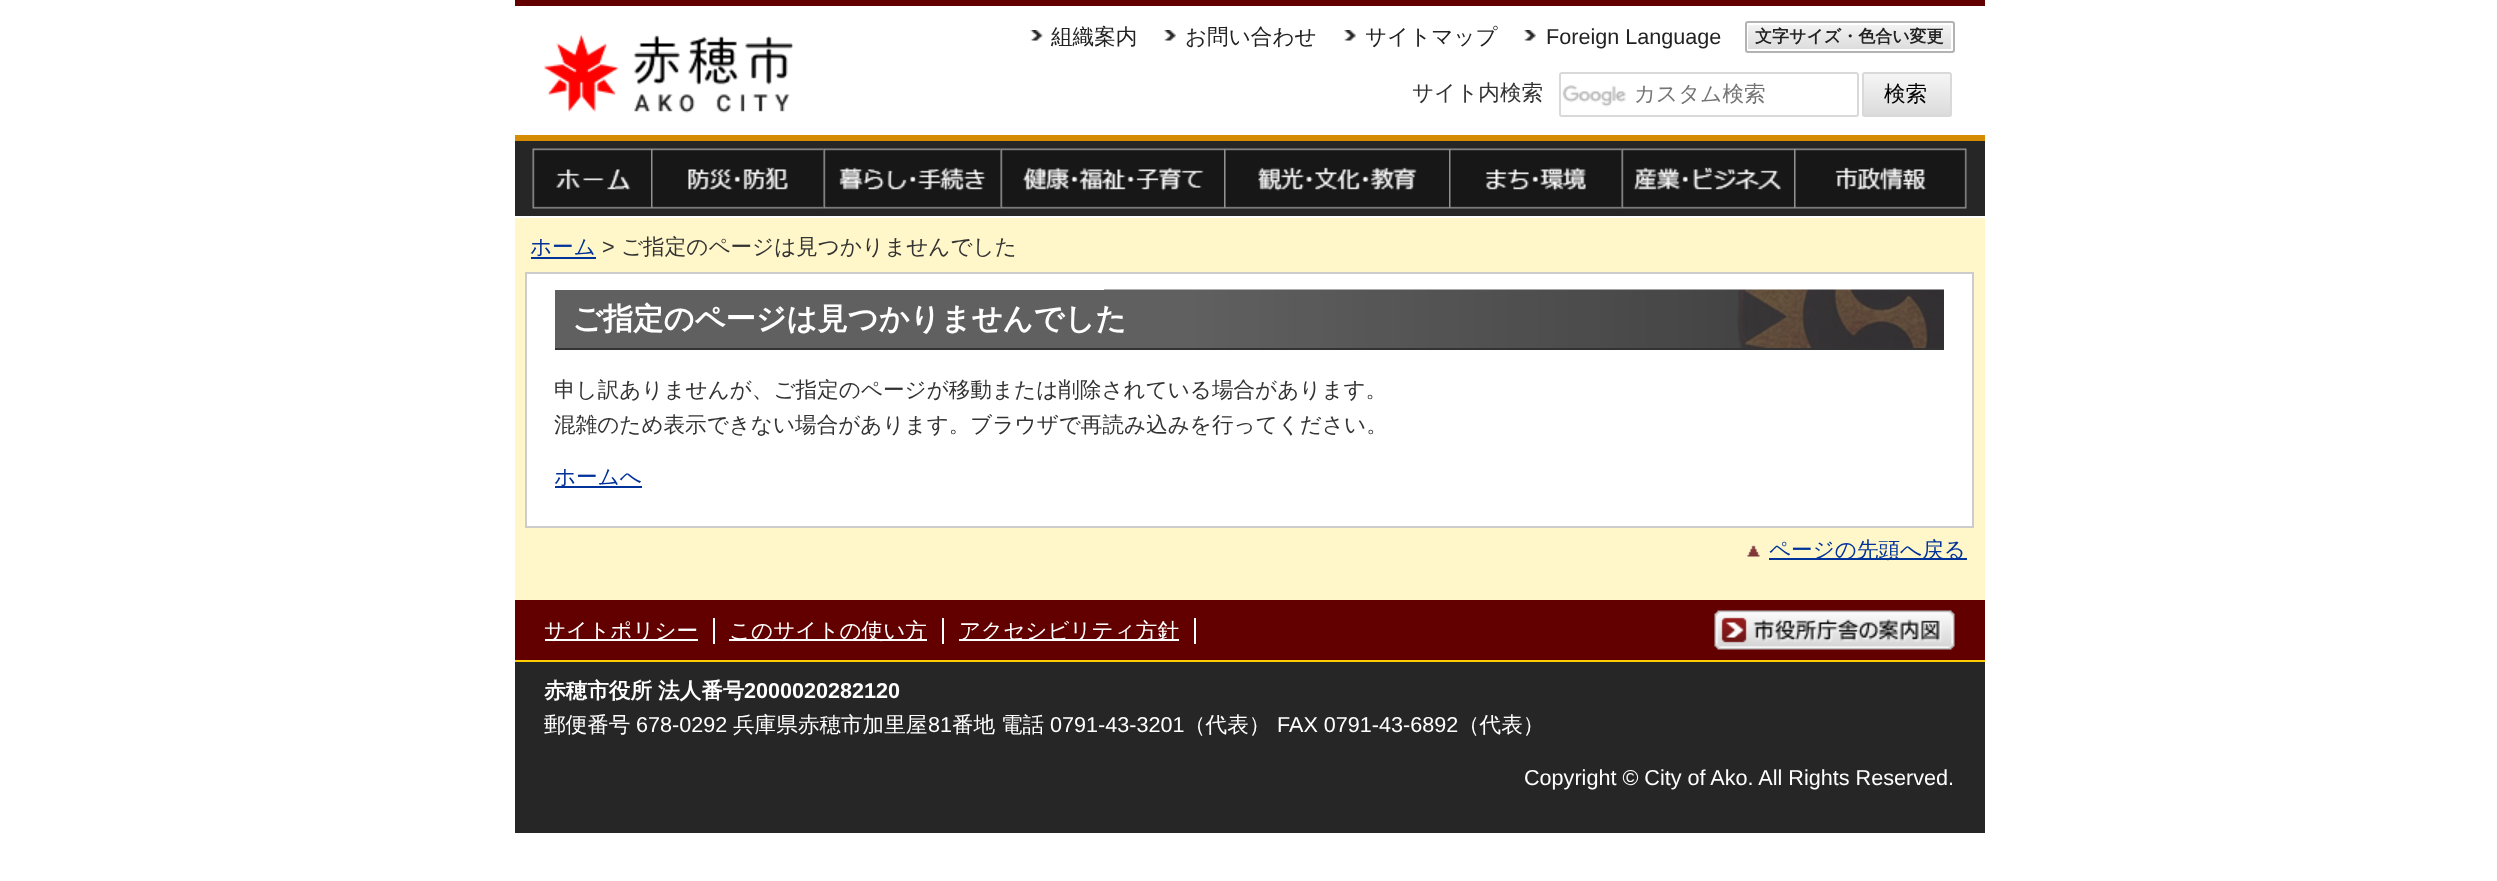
async function draw(canvas) {
  canvas.width = 2497
  canvas.height = 881
  const ctx = canvas.getContext('2d')
  ctx.miterLimit = 4
  ctx.fontKerning = 'normal'
  async function loadImage(src) {
    const img = new Image()
    img.src = src
    await img.decode()
    return img
  }
  let gradient

  ctx.fillStyle = '#fff'
  ctx.fillRect(0, 0, 2497, 881)
  ctx.fillStyle = '#fff7c9'
  ctx.fillRect(515, 218, 1470, 382)
  ctx.fillStyle = '#620000'
  ctx.fillRect(515, 0, 1470, 6)
  ctx.fillStyle = '#d58c00'
  ctx.fillRect(515, 135, 1470, 6)
  ctx.drawImage(await loadImage('image0.png'), 544, 34, 250, 79)
  ctx.drawImage(await loadImage('image1.png'), 1030, 30, 13, 11)
  ctx.font = '500 21.6px WenQuanYi Zen Hei'
  ctx.fillStyle = '#222'
  ctx.fillText('組織案内', 1051, 44)
  ctx.drawImage(await loadImage('image2.png'), 1164, 30, 12, 11)
  ctx.fillText('お問い合わせ', 1185, 44)
  ctx.drawImage(await loadImage('image2.png'), 1344, 30, 12, 11)
  ctx.fillText('サイトマップ', 1365, 44)
  ctx.drawImage(await loadImage('image3.png'), 1524, 30, 12, 11)
  ctx.font = '21.6px Liberation Sans'
  ctx.fillText('Foreign Language', 1546, 44)
  ctx.save()
  ctx.beginPath()
  ctx.roundRect(1745, 21, 210, 32, 3)
  ctx.clip()
  gradient = ctx.createLinearGradient(1850, 22, 1850, 51)
  gradient.addColorStop(0, '#f5f5f5')
  gradient.addColorStop(1, '#dbdbdb')
  ctx.fillStyle = gradient
  ctx.fillRect(1745, 23, 210, 28)
  ctx.restore()
  ctx.beginPath()
  ctx.roundRect(1747, 24, 205, 26, 0.5)
  ctx.strokeStyle = '#fff'
  ctx.lineWidth = 2
  ctx.stroke()
  ctx.beginPath()
  ctx.roundRect(1746, 22, 208, 30, 2)
  ctx.strokeStyle = '#b3b3b3'
  ctx.stroke()
  ctx.font = 'bold 17px WenQuanYi Zen Hei'
  ctx.fillText('文字サイズ・色合い変更', 1755, 42)
  ctx.font = '500 21.6px WenQuanYi Zen Hei'
  ctx.fillStyle = '#333'
  ctx.fillText('サイト内検索', 1412, 100)
  ctx.drawImage(await loadImage('image4.png'), 1562, 85, 65, 22)
  ctx.beginPath()
  ctx.roundRect(1560, 73, 298, 43, 2)
  ctx.strokeStyle = '#d9d9d9'
  ctx.stroke()
  ctx.fillStyle = '#757575'
  ctx.fillText('カスタム検索', 1634, 101)
  ctx.save()
  ctx.beginPath()
  ctx.roundRect(1862, 72, 90, 45, 3)
  ctx.clip()
  gradient = ctx.createLinearGradient(1907, 74, 1907, 116)
  gradient.addColorStop(0, '#f5f5f5')
  gradient.addColorStop(1, '#dbdbdb')
  ctx.fillStyle = gradient
  ctx.fillRect(1862, 74, 90, 42)
  ctx.restore()
  ctx.beginPath()
  ctx.roundRect(1863, 73, 88, 43, 2)
  ctx.stroke()
  ctx.fillStyle = '#000'
  ctx.fillText('検索', 1884, 101)
  ctx.fillStyle = '#262626'
  ctx.fillRect(515, 141, 1470, 75)
  ctx.drawImage(await loadImage('image5.png'), 532, 148, 119, 61)
  ctx.drawImage(await loadImage('image6.png'), 651, 148, 173, 61)
  ctx.drawImage(await loadImage('image7.png'), 823, 148, 178, 61)
  ctx.drawImage(await loadImage('image8.png'), 1000, 148, 224, 61)
  ctx.drawImage(await loadImage('image9.png'), 1224, 148, 225, 61)
  ctx.drawImage(await loadImage('image10.png'), 1449, 148, 173, 61)
  ctx.drawImage(await loadImage('image11.png'), 1621, 148, 173, 61)
  ctx.drawImage(await loadImage('image12.png'), 1794, 148, 173, 61)
  ctx.fillStyle = '#039'
  ctx.fillText('ホーム', 530, 254)
  ctx.fillRect(531, 257, 65, 2)
  ctx.font = '21.6px Liberation Sans'
  ctx.fillStyle = '#333'
  ctx.fillText('>', 602, 254)
  ctx.font = '500 21.6px WenQuanYi Zen Hei'
  ctx.fillText('ご指定のページは見つかりませんでした', 621, 254)
  ctx.fillStyle = '#fff'
  ctx.beginPath()
  ctx.rect(526, 273, 1447, 254)
  ctx.fill()
  ctx.strokeStyle = '#ccc'
  ctx.stroke()
  ctx.fillStyle = '#606060'
  ctx.fillRect(555, 290, 549, 58)
  ctx.drawImage(await loadImage('image13.png'), 1104, 289, 840, 59)
  ctx.fillStyle = '#333'
  ctx.fillRect(555, 348, 1389, 2)
  ctx.font = 'bold 30.25px WenQuanYi Zen Hei'
  ctx.fillStyle = '#fff'
  ctx.fillText('ご指定のページは見つかりませんでした', 572, 329)
  ctx.font = '500 21.6px WenQuanYi Zen Hei'
  ctx.fillStyle = '#333'
  ctx.fillText('申し訳ありませんが、ご指定のページが移動または削除されている場合があります。', 554, 397)
  ctx.fillText('混雑のため表示できない場合があります。ブラウザで再読み込みを行ってください。', 554, 432)
  ctx.fillStyle = '#039'
  ctx.fillRect(555, 486, 87, 2)
  ctx.fillText('ホームへ', 554, 484)
  ctx.drawImage(await loadImage('image14.png'), 1747, 545, 13, 12)
  ctx.fillRect(1769, 558, 198, 2)
  ctx.fillText('ページの先頭へ戻る', 1769, 557)
  ctx.fillStyle = '#620000'
  ctx.fillRect(515, 600, 1470, 60)
  ctx.fillStyle = '#fff'
  ctx.fillRect(713, 618, 2, 26)
  ctx.fillRect(545, 639, 153, 2)
  ctx.fillText('サイトポリシー', 544, 638)
  ctx.fillRect(942, 618, 2, 26)
  ctx.fillRect(729, 639, 198, 2)
  ctx.fillText('このサイトの使い方', 729, 638)
  ctx.fillRect(1194, 618, 2, 26)
  ctx.fillRect(959, 639, 220, 2)
  ctx.fillText('アクセシビリティ方針', 959, 638)
  ctx.drawImage(await loadImage('image15.png'), 1714, 610, 241, 40)
  ctx.fillStyle = '#262626'
  ctx.fillRect(515, 662, 1470, 171)
  ctx.fillStyle = '#fc0'
  ctx.fillRect(515, 660, 1470, 2)
  ctx.font = 'bold 21.6px WenQuanYi Zen Hei'
  ctx.fillStyle = '#fff'
  ctx.fillText('赤穂市役所', 544, 698)
  ctx.fillText('法人番号', 658, 698)
  ctx.font = 'bold 21.6px Liberation Sans'
  ctx.fillText('2000020282120', 744, 698)
  ctx.font = '500 21.6px WenQuanYi Zen Hei'
  ctx.fillText('郵便番号', 544, 732)
  ctx.font = '21.6px Liberation Sans'
  ctx.fillText('678-0292', 636, 732)
  ctx.font = '500 21.6px WenQuanYi Zen Hei'
  ctx.fillText('兵庫県赤穂市加里屋', 733, 732)
  ctx.font = '21.6px Liberation Sans'
  ctx.fillText('81', 928, 732)
  ctx.font = '500 21.6px WenQuanYi Zen Hei'
  ctx.fillText('番地', 952, 732)
  ctx.fillText('電話', 1001, 732)
  ctx.font = '21.6px Liberation Sans'
  ctx.fillText('0791-43-3201', 1050, 732)
  ctx.font = '500 21.6px WenQuanYi Zen Hei'
  ctx.fillText('（代表）', 1184, 732)
  ctx.font = '21.6px Liberation Sans'
  ctx.fillText('FAX 0791-43-6892', 1277, 732)
  ctx.font = '500 21.6px WenQuanYi Zen Hei'
  ctx.fillText('（代表）', 1458, 732)
  ctx.font = '21.6px Liberation Sans'
  ctx.fillText('Copyright © City of Ako. All Rights Reserved.', 1524, 785)
}

draw(document.querySelector('canvas'))
